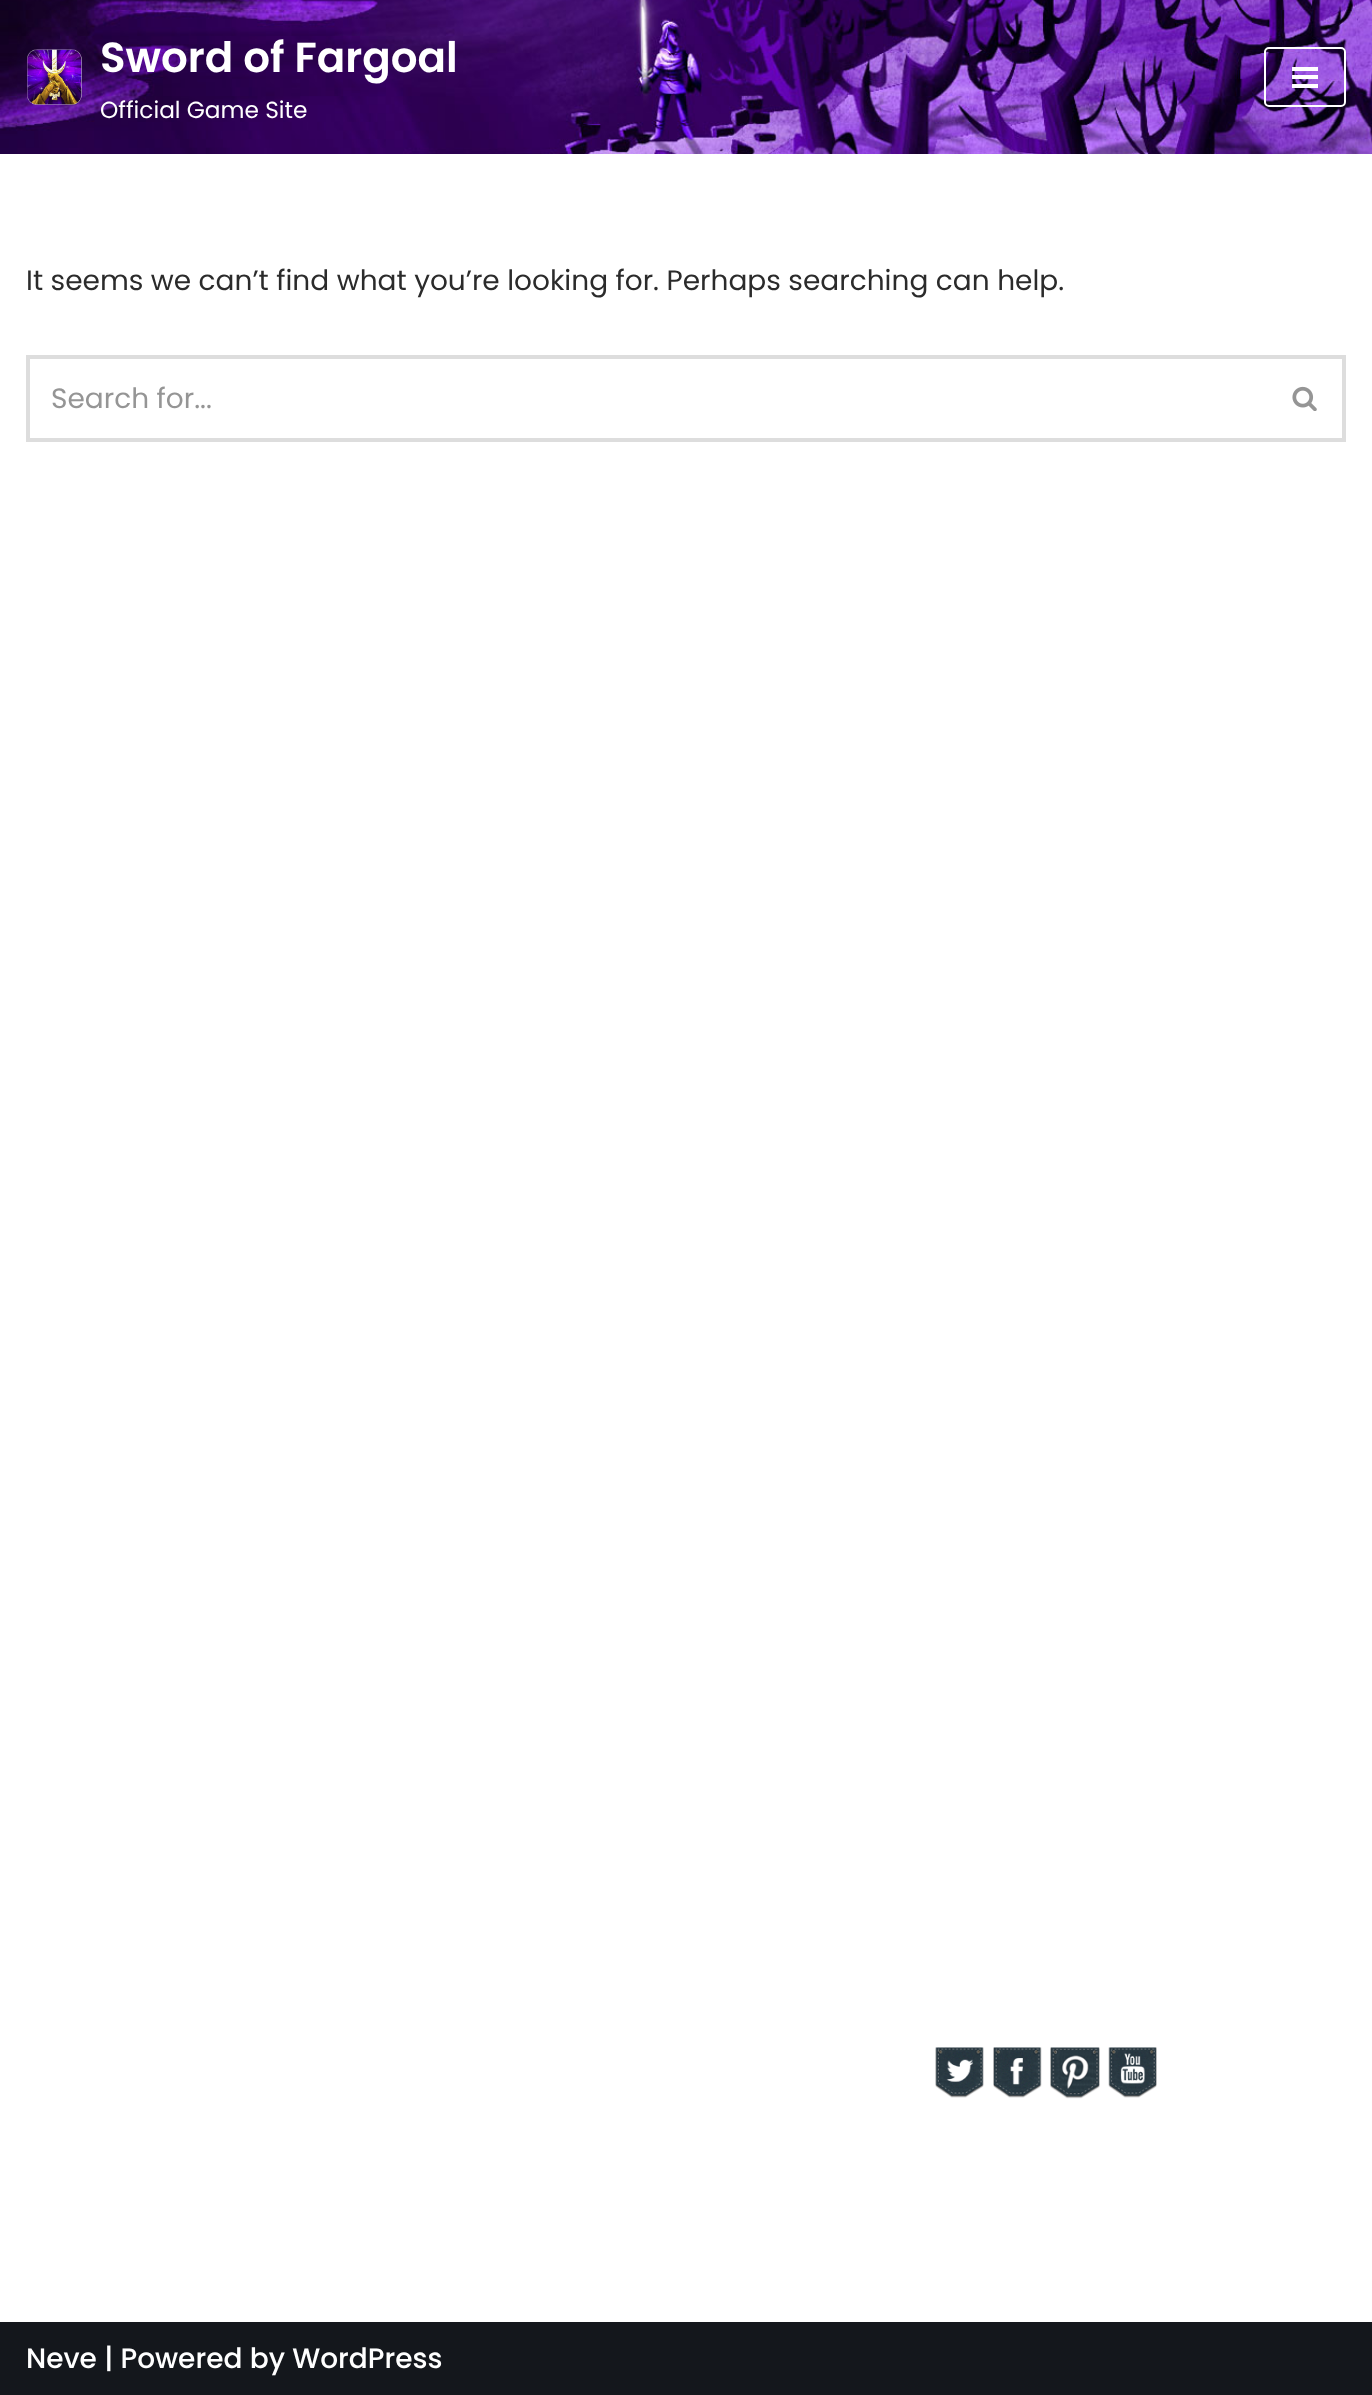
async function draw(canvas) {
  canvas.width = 1372
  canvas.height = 2395
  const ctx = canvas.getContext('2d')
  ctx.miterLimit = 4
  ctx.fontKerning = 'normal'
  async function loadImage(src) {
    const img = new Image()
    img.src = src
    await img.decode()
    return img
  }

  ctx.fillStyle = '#fff'
  ctx.fillRect(0, 0, 1372, 2395)
  ctx.drawImage(await loadImage('image0.png'), 0, 0, 1372, 154)
  ctx.drawImage(await loadImage('image1.png'), 27, 49, 55, 56)
  ctx.font = '600 42px Poppins'
  ctx.fillText('Sword of Fargoal', 100, 72)
  ctx.font = '23.25px Poppins'
  ctx.fillText('Official Game Site', 100, 118)
  ctx.beginPath()
  ctx.roundRect(1265, 48, 80, 58, 4)
  ctx.strokeStyle = '#fff'
  ctx.lineWidth = 2
  ctx.stroke()
  ctx.fillRect(1292, 67, 26, 4)
  ctx.fillRect(1292, 75, 26, 4)
  ctx.fillRect(1292, 84, 26, 4)
  ctx.font = '28px Poppins'
  ctx.fillStyle = '#2b2b2b'
  ctx.fillText('It seems we can’t find what you’re looking for. Perhaps searching can help.', 26, 290)
  ctx.fillStyle = '#ddd'
  ctx.fillRect(26, 355, 1320, 4)
  ctx.fillRect(26, 438, 1241, 4)
  ctx.fillRect(26, 355, 4, 86)
  ctx.fillStyle = '#959595'
  ctx.fillText('Search for...', 51, 408)
  ctx.fillStyle = '#ddd'
  ctx.fillRect(1342, 355, 4, 86)
  ctx.fillRect(1267, 438, 79, 4)
  ctx.drawImage(await loadImage('image2.png'), 1292, 386, 25, 25)
  ctx.fillStyle = '#14171c'
  ctx.fillRect(0, 2322, 1372, 73)
  ctx.font = '500 28px Poppins'
  ctx.fillStyle = '#fff'
  ctx.fillText('Neve | Powered by WordPress', 26, 2368)
  ctx.drawImage(await loadImage('image3.png'), 935, 2047, 49, 51)
  ctx.drawImage(await loadImage('image4.png'), 993, 2047, 49, 51)
  ctx.drawImage(await loadImage('image5.png'), 1050, 2047, 50, 52)
  ctx.drawImage(await loadImage('image6.png'), 1108, 2047, 49, 51)
}

draw(document.querySelector('canvas'))
